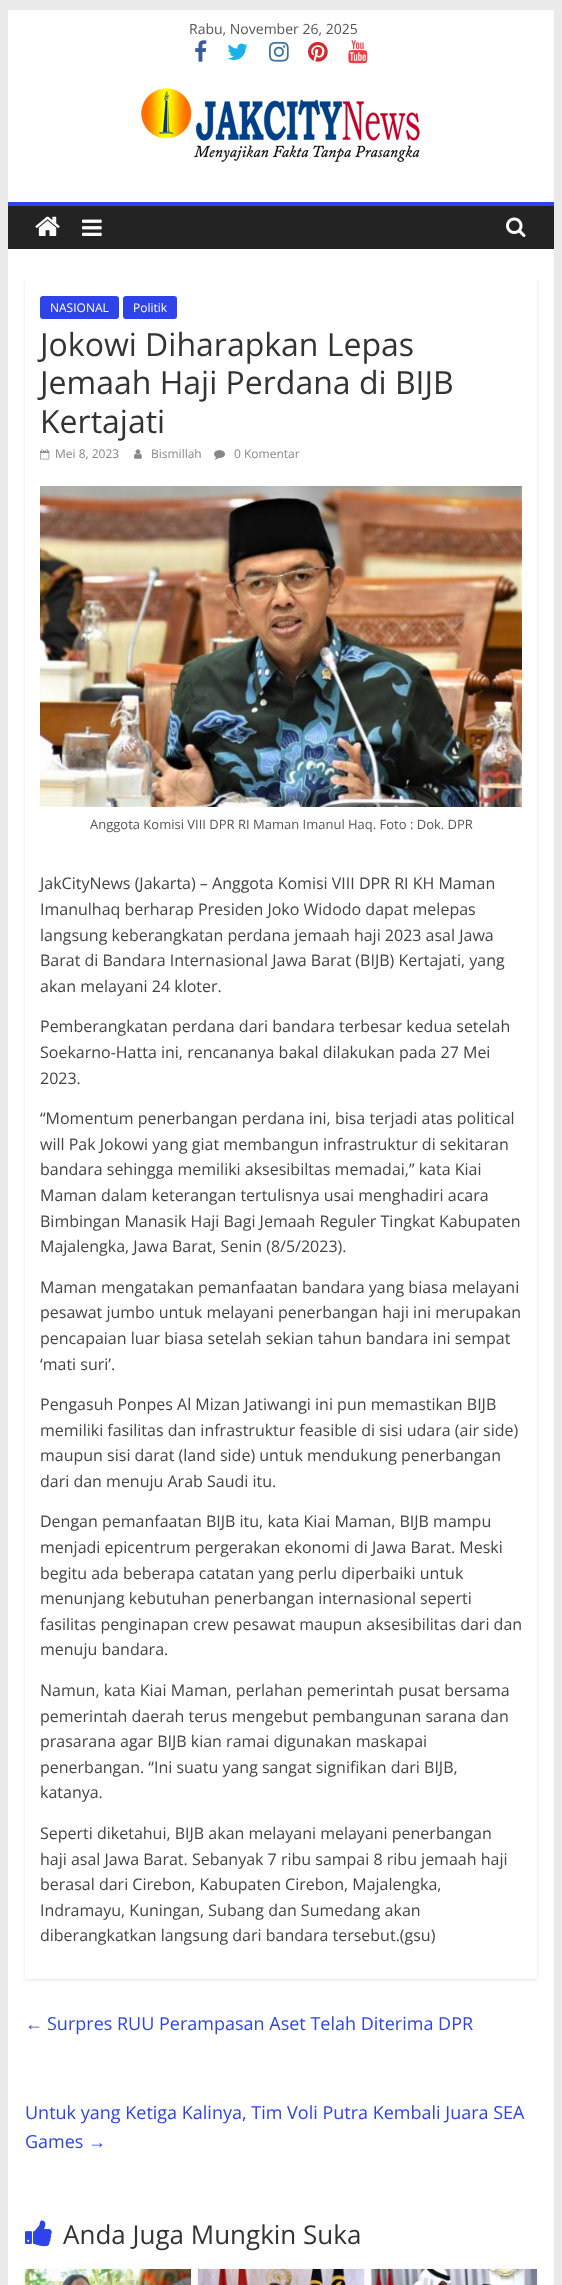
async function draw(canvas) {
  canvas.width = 562
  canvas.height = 2285
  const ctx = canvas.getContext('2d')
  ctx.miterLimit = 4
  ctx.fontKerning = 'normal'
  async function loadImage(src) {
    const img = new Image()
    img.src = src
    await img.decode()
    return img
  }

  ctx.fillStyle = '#eaeaea'
  ctx.fillRect(0, 0, 562, 2285)
  ctx.fillStyle = '#fff'
  ctx.fillRect(8, 10, 546, 192)
  ctx.font = '14px Open Sans'
  ctx.fillStyle = '#555'
  ctx.fillText('Rabu, November 26, 2025', 189, 34)
  ctx.drawImage(await loadImage('image0.png'), 195, 40, 12, 22)
  ctx.drawImage(await loadImage('image1.png'), 227, 43, 21, 17)
  ctx.drawImage(await loadImage('image2.png'), 269, 41, 20, 21)
  ctx.drawImage(await loadImage('image3.png'), 308, 41, 20, 21)
  ctx.drawImage(await loadImage('image4.png'), 348, 40, 20, 24)
  ctx.drawImage(await loadImage('image5.png'), 141, 88, 279, 74)
  ctx.fillStyle = '#232323'
  ctx.fillRect(8, 206, 546, 43)
  ctx.fillStyle = '#2e44ea'
  ctx.fillRect(8, 202, 546, 4)
  ctx.drawImage(await loadImage('image6.png'), 35, 216, 25, 20)
  ctx.drawImage(await loadImage('image7.png'), 82, 219, 20, 17)
  ctx.drawImage(await loadImage('image8.png'), 506, 217, 20, 20)
  ctx.fillStyle = '#fff'
  ctx.fillRect(8, 249, 546, 2036)
  ctx.save()
  ctx.beginPath()
  ctx.moveTo(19, 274)
  ctx.lineTo(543, 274)
  ctx.lineTo(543, 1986)
  ctx.lineTo(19, 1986)
  ctx.closePath()
  ctx.moveTo(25, 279)
  ctx.lineTo(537, 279)
  ctx.lineTo(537, 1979)
  ctx.lineTo(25, 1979)
  ctx.closePath()
  ctx.clip('evenodd')
  ctx.fillStyle = '#0000001a'
  ctx.filter = 'blur(1.5px)'
  ctx.beginPath()
  ctx.rect(25, 280, 512, 1700)
  ctx.fill()
  ctx.filter = 'none'
  ctx.restore()
  ctx.fillStyle = '#2e44ea'
  ctx.beginPath()
  ctx.roundRect(40, 296, 79, 23, 3)
  ctx.fill()
  ctx.font = '12px Open Sans'
  ctx.fillStyle = '#fff'
  ctx.fillText('NASIONAL', 50, 312)
  ctx.fillStyle = '#2e44ea'
  ctx.beginPath()
  ctx.roundRect(123, 296, 54, 23, 3)
  ctx.fill()
  ctx.fillStyle = '#fff'
  ctx.fillText('Politik', 133, 312)
  ctx.font = '32px Open Sans'
  ctx.fillStyle = '#333'
  ctx.fillText('Jokowi Diharapkan Lepas', 40, 356)
  ctx.fillText('Jemaah Haji Perdana di BIJB', 40, 394)
  ctx.fillText('Kertajati', 40, 433)
  ctx.drawImage(await loadImage('image9.png'), 40, 449, 10, 11)
  ctx.font = '12px Open Sans'
  ctx.fillStyle = '#888'
  ctx.fillText('Mei 8, 2023', 55, 458)
  ctx.drawImage(await loadImage('image10.png'), 134, 449, 8, 10)
  ctx.fillText('Bismillah', 151, 458)
  ctx.drawImage(await loadImage('image11.png'), 214, 450, 11, 10)
  ctx.fillText('0 Komentar', 234, 458)
  ctx.drawImage(await loadImage('image12.png'), 40, 486, 482, 321)
  ctx.font = '13px Open Sans'
  ctx.fillStyle = '#555'
  ctx.fillText('Anggota Komisi VIII DPR RI Maman Imanul Haq. Foto : Dok. DPR', 90, 829)
  ctx.font = '16px Open Sans'
  ctx.fillStyle = '#444'
  ctx.fillText('JakCityNews (Jakarta) – Anggota Komisi VIII DPR RI KH Maman', 40, 889)
  ctx.fillText('Imanulhaq berharap Presiden Joko Widodo dapat melepas', 40, 915)
  ctx.fillText('langsung keberangkatan perdana jemaah haji 2023 asal Jawa', 40, 941)
  ctx.fillText('Barat di Bandara Internasional Jawa Barat (BIJB) Kertajati, yang', 40, 966)
  ctx.fillText('akan melayani 24 kloter.', 40, 992)
  ctx.fillText('Pemberangkatan perdana dari bandara terbesar kedua setelah', 40, 1032)
  ctx.fillText('Soekarno-Hatta ini, rencananya bakal dilakukan pada 27 Mei', 40, 1058)
  ctx.fillText('2023.', 40, 1084)
  ctx.fillText('“Momentum penerbangan perdana ini, bisa terjadi atas political', 40, 1124)
  ctx.fillText('will Pak Jokowi yang giat membangun infrastruktur di sekitaran', 40, 1150)
  ctx.fillText('bandara sehingga memiliki aksesibiltas memadai,” kata Kiai', 40, 1175)
  ctx.fillText('Maman dalam keterangan tertulisnya usai menghadiri acara', 40, 1201)
  ctx.fillText('Bimbingan Manasik Haji Bagi Jemaah Reguler Tingkat Kabupaten', 40, 1227)
  ctx.fillText('Majalengka, Jawa Barat, Senin (8/5/2023).', 40, 1252)
  ctx.fillText('Maman mengatakan pemanfaatan bandara yang biasa melayani', 40, 1293)
  ctx.fillText('pesawat jumbo untuk melayani penerbangan haji ini merupakan', 40, 1318)
  ctx.fillText('pencapaian luar biasa setelah sekian tahun bandara ini sempat', 40, 1344)
  ctx.fillText('‘mati suri’.', 40, 1370)
  ctx.fillText('Pengasuh Ponpes Al Mizan Jatiwangi ini pun memastikan BIJB', 40, 1410)
  ctx.fillText('memiliki fasilitas dan infrastruktur feasible di sisi udara (air side)', 40, 1436)
  ctx.fillText('maupun sisi darat (land side) untuk mendukung penerbangan', 40, 1461)
  ctx.fillText('dari dan menuju Arab Saudi itu.', 40, 1487)
  ctx.fillText('Dengan pemanfaatan BIJB itu, kata Kiai Maman, BIJB mampu', 40, 1527)
  ctx.fillText('menjadi epicentrum pergerakan ekonomi di Jawa Barat. Meski', 40, 1553)
  ctx.fillText('begitu ada beberapa catatan yang perlu diperbaiki untuk', 40, 1579)
  ctx.fillText('menunjang kebutuhan penerbangan internasional seperti', 40, 1604)
  ctx.fillText('fasilitas penginapan crew pesawat maupun aksesibilitas dari dan', 40, 1630)
  ctx.fillText('menuju bandara.', 40, 1655)
  ctx.fillText('Namun, kata Kiai Maman, perlahan pemerintah pusat bersama', 40, 1696)
  ctx.fillText('pemerintah daerah terus mengebut pembangunan sarana dan', 40, 1722)
  ctx.fillText('prasarana agar BIJB kian ramai digunakan maskapai', 40, 1747)
  ctx.fillText('penerbangan. “Ini suatu yang sangat signifikan dari BIJB,', 40, 1773)
  ctx.fillText('katanya.', 40, 1798)
  ctx.fillText('Seperti diketahui, BIJB akan melayani melayani penerbangan', 40, 1839)
  ctx.fillText('haji asal Jawa Barat. Sebanyak 7 ribu sampai 8 ribu jemaah haji', 40, 1865)
  ctx.fillText('berasal dari Cirebon, Kabupaten Cirebon, Majalengka,', 40, 1890)
  ctx.fillText('Indramayu, Kuningan, Subang dan Sumedang akan', 40, 1916)
  ctx.fillText('diberangkatkan langsung dari bandara tersebut.(gsu)', 40, 1941)
  ctx.font = '18px Liberation Serif'
  ctx.fillStyle = '#2e44ea'
  ctx.fillText('←', 25, 2030)
  ctx.font = '18px Open Sans'
  ctx.fillText('Surpres RUU Perampasan Aset Telah Diterima DPR', 47, 2030)
  ctx.fillText('Untuk yang Ketiga Kalinya, Tim Voli Putra Kembali Juara SEA', 25, 2119)
  ctx.fillText('Games', 25, 2148)
  ctx.font = '18px Liberation Serif'
  ctx.fillText('→', 88, 2148)
  ctx.drawImage(await loadImage('image13.png'), 25, 2220, 27, 27)
  ctx.font = '26px Open Sans'
  ctx.fillStyle = '#333'
  ctx.fillText('Anda Juga Mungkin Suka', 63, 2244)
  ctx.fillStyle = '#0000001a'
  ctx.filter = 'blur(1.5px)'
  ctx.beginPath()
  ctx.rect(25, 2270, 166, 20)
  ctx.fill()
  ctx.filter = 'none'
  ctx.drawImage(await loadImage('image14.png'), 25, 2269, 166, 16)
  ctx.filter = 'blur(1.5px)'
  ctx.beginPath()
  ctx.rect(198, 2270, 166, 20)
  ctx.fill()
  ctx.filter = 'none'
  ctx.drawImage(await loadImage('image15.png'), 198, 2269, 166, 16)
  ctx.filter = 'blur(1.5px)'
  ctx.beginPath()
  ctx.rect(371, 2270, 166, 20)
  ctx.fill()
  ctx.filter = 'none'
  ctx.drawImage(await loadImage('image16.png'), 371, 2269, 166, 16)
}

draw(document.querySelector('canvas'))
